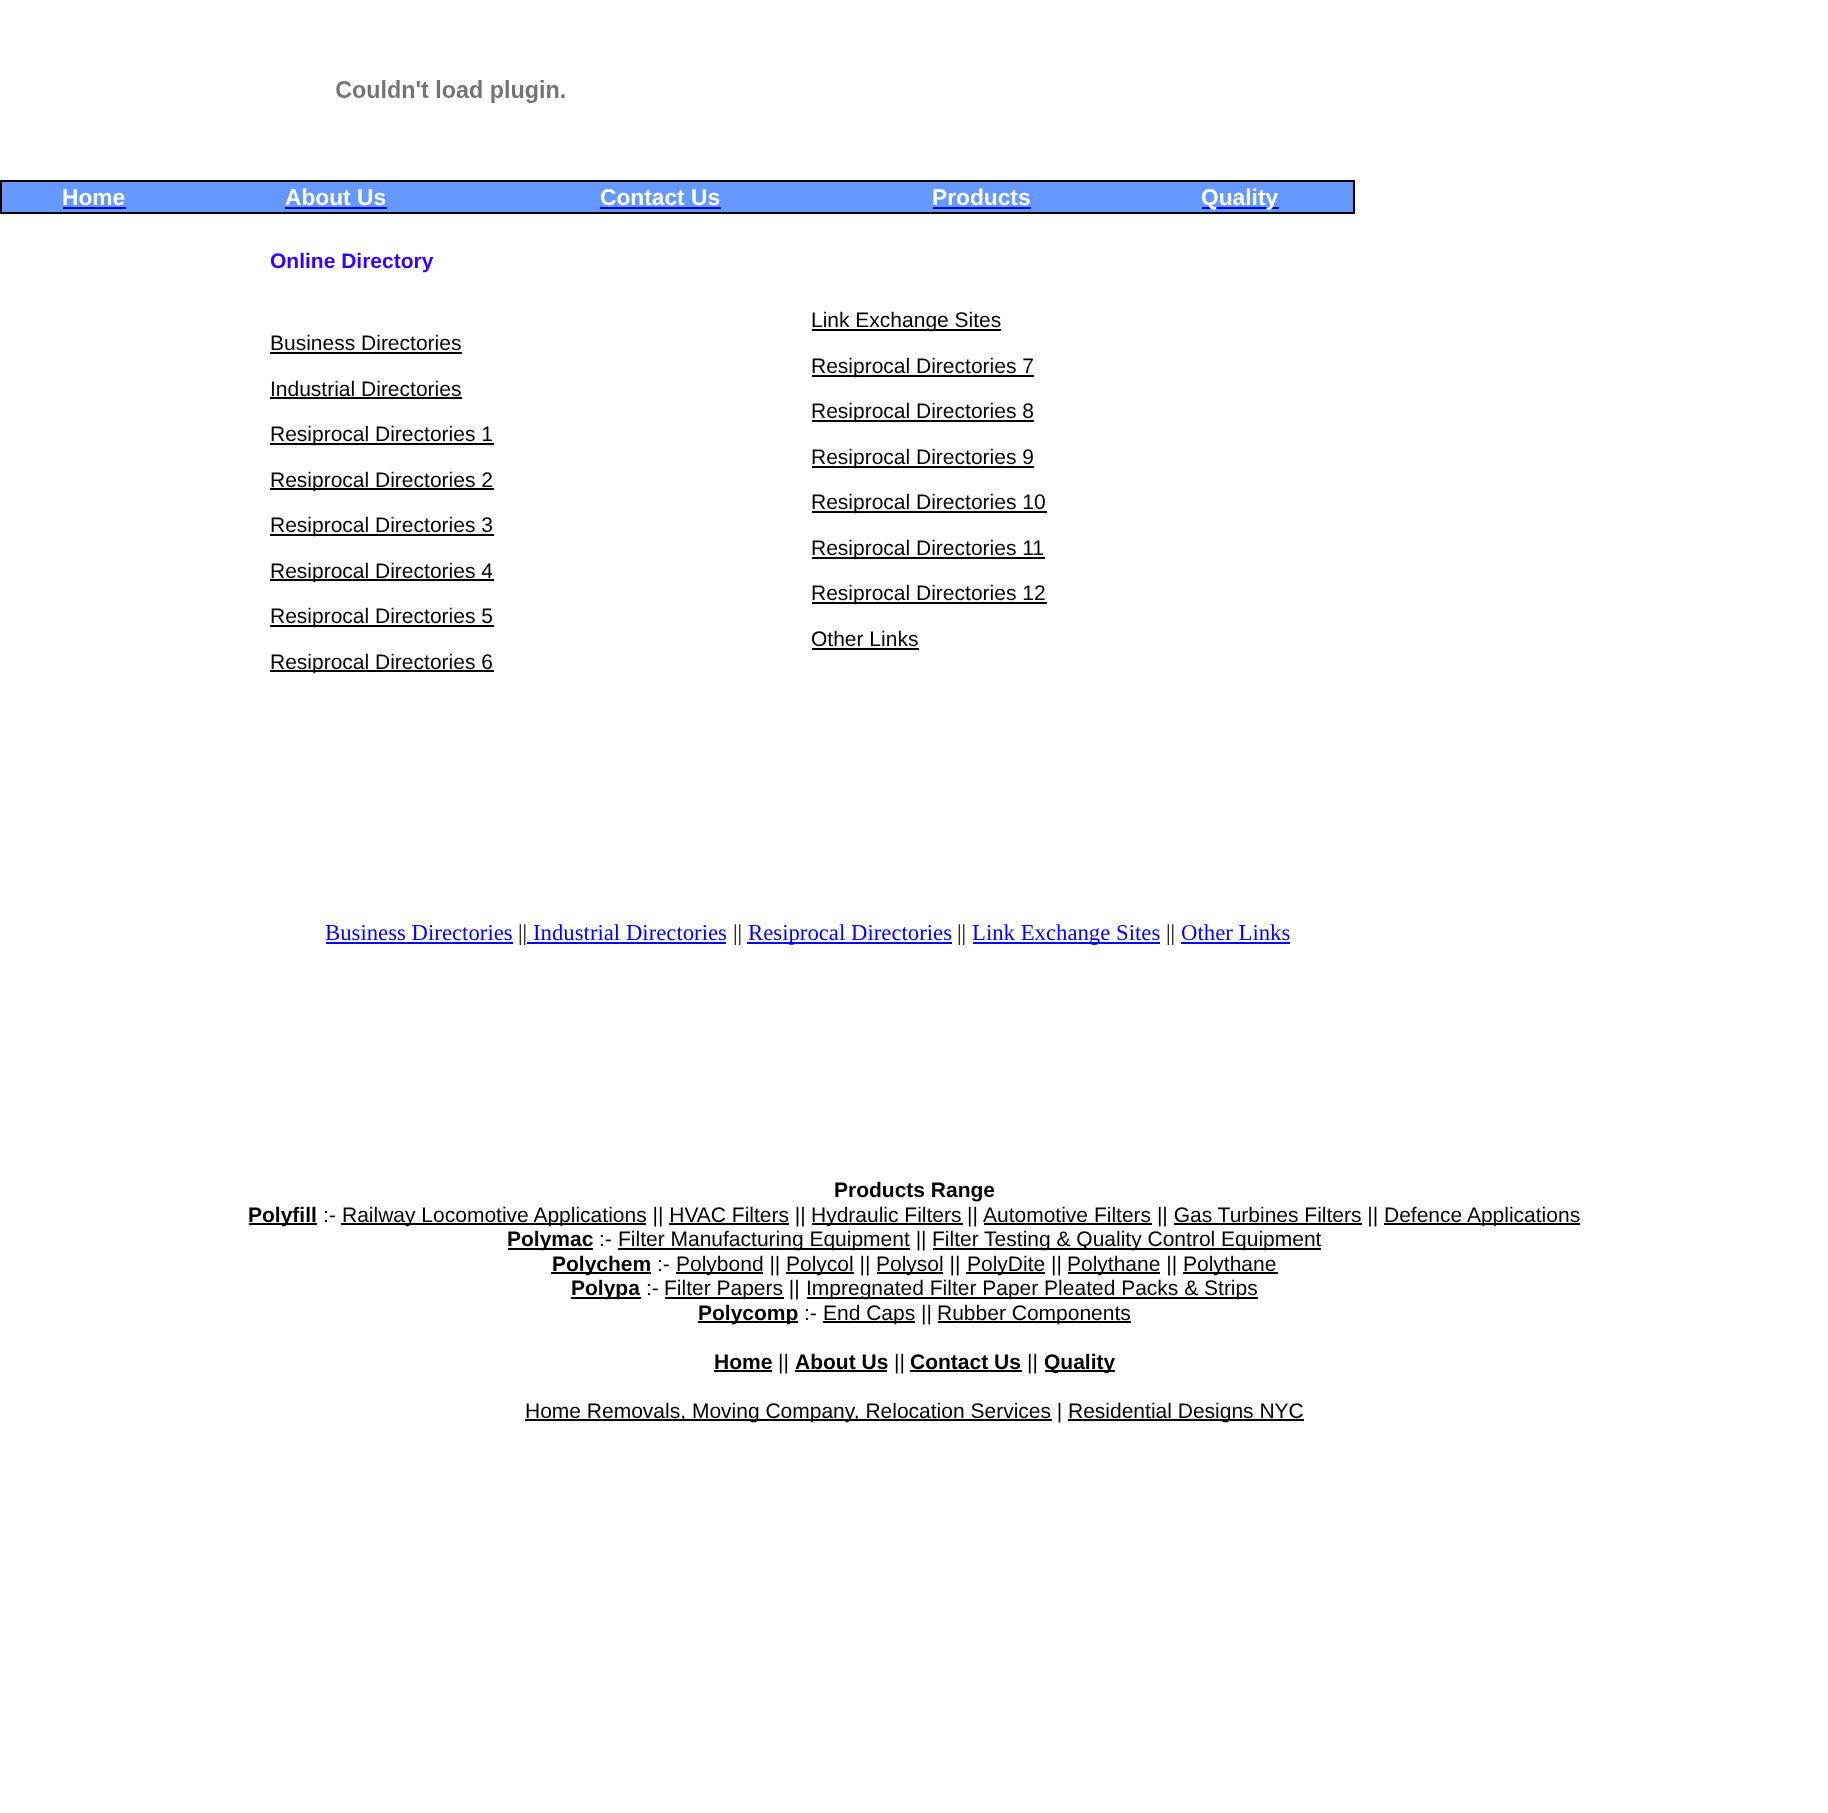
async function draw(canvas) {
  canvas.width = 1828
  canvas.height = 1813
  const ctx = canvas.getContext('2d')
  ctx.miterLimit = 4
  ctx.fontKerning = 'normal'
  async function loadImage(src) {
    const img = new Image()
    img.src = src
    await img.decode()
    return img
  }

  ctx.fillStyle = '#fff'
  ctx.fillRect(0, 0, 1828, 1813)
  ctx.drawImage(await loadImage('image0.png'), 336, 80, 229, 23)
  ctx.fillStyle = '#000'
  ctx.fillRect(0, 180, 1355, 34)
  ctx.fillStyle = '#69f'
  ctx.fillRect(2, 182, 1351, 30)
  ctx.font = 'bold 22.75px Liberation Sans'
  ctx.fillStyle = '#fff'
  ctx.fillText('Home', 62, 205)
  ctx.fillStyle = '#00f'
  ctx.fillRect(63, 207, 63, 2)
  ctx.fillStyle = '#fff'
  ctx.fillText('About Us', 285, 205)
  ctx.fillStyle = '#00f'
  ctx.fillRect(285, 207, 102, 2)
  ctx.fillStyle = '#fff'
  ctx.fillText('Contact Us', 600, 205)
  ctx.fillStyle = '#00f'
  ctx.fillRect(600, 207, 121, 2)
  ctx.fillStyle = '#fff'
  ctx.fillText('Products', 932, 205)
  ctx.fillStyle = '#00f'
  ctx.fillRect(933, 207, 98, 2)
  ctx.fillRect(1202, 207, 77, 2)
  ctx.fillStyle = '#fff'
  ctx.fillText('Quality', 1201, 205)
  ctx.font = 'bold 21px Liberation Sans'
  ctx.fillStyle = '#30f'
  ctx.fillText('Online Directory', 270, 268)
  ctx.font = '21px Liberation Sans'
  ctx.fillStyle = '#000'
  ctx.fillText('Business Directories', 270, 350)
  ctx.fillRect(270, 352, 192, 2)
  ctx.fillText('Industrial Directories', 270, 396)
  ctx.fillRect(270, 397, 192, 2)
  ctx.fillRect(270, 443, 224, 2)
  ctx.fillText('Resiprocal Directories 1', 270, 441)
  ctx.fillRect(270, 488, 224, 2)
  ctx.fillText('Resiprocal Directories 2', 270, 487)
  ctx.fillRect(270, 534, 224, 2)
  ctx.fillText('Resiprocal Directories 3', 270, 532)
  ctx.fillRect(270, 579, 224, 2)
  ctx.fillText('Resiprocal Directories 4', 270, 578)
  ctx.fillRect(270, 625, 224, 2)
  ctx.fillText('Resiprocal Directories 5', 270, 623)
  ctx.fillRect(270, 670, 224, 2)
  ctx.fillText('Resiprocal Directories 6', 270, 669)
  ctx.fillRect(812, 329, 189, 2)
  ctx.fillText('Link Exchange Sites', 811, 327)
  ctx.fillRect(812, 375, 222, 2)
  ctx.fillText('Resiprocal Directories 7', 811, 373)
  ctx.fillRect(812, 420, 222, 2)
  ctx.fillText('Resiprocal Directories 8', 811, 418)
  ctx.fillRect(812, 466, 222, 2)
  ctx.fillText('Resiprocal Directories 9', 811, 464)
  ctx.fillRect(812, 511, 235, 2)
  ctx.fillText('Resiprocal Directories 10', 811, 509)
  ctx.fillRect(812, 557, 233, 2)
  ctx.fillText('Resiprocal Directories 11', 811, 555)
  ctx.fillRect(812, 602, 235, 2)
  ctx.fillText('Resiprocal Directories 12', 811, 600)
  ctx.fillText('Other Links', 811, 646)
  ctx.fillRect(812, 648, 107, 2)
  ctx.font = '22.75px Liberation Serif'
  ctx.fillStyle = '#00f'
  ctx.fillText('Business Directories', 325, 940)
  ctx.fillRect(326, 942, 187, 2)
  ctx.fillStyle = '#000'
  ctx.fillText('||', 518, 940)
  ctx.fillStyle = '#00f'
  ctx.fillRect(527, 942, 199, 2)
  ctx.fillText('Industrial Directories', 533, 940)
  ctx.fillStyle = '#000'
  ctx.fillText('||', 733, 940)
  ctx.fillStyle = '#00f'
  ctx.fillRect(747, 942, 205, 2)
  ctx.fillText('Resiprocal Directories', 748, 940)
  ctx.fillStyle = '#000'
  ctx.fillText('||', 957, 940)
  ctx.fillStyle = '#00f'
  ctx.fillRect(973, 942, 187, 2)
  ctx.fillText('Link Exchange Sites', 972, 940)
  ctx.fillStyle = '#000'
  ctx.fillText('||', 1166, 940)
  ctx.fillStyle = '#00f'
  ctx.fillText('Other Links', 1181, 940)
  ctx.fillRect(1181, 942, 109, 2)
  ctx.font = 'bold 21px Liberation Sans'
  ctx.fillStyle = '#000'
  ctx.fillText('Products Range', 834, 1197)
  ctx.fillRect(249, 1223, 68, 2)
  ctx.fillText('Polyfill', 248, 1222)
  ctx.font = '21px Liberation Sans'
  ctx.fillText(':-', 323, 1222)
  ctx.fillRect(341, 1223, 305, 2)
  ctx.fillText('Railway Locomotive Applications || HVAC Filters ||', 342, 1222)
  ctx.fillRect(812, 1223, 151, 2)
  ctx.fillText('Hydraulic Filters', 811, 1222)
  ctx.fillText('||', 967, 1222)
  ctx.fillRect(984, 1223, 168, 2)
  ctx.fillText('Automotive Filters || Gas Turbines Filters ||', 983, 1222)
  ctx.fillRect(1384, 1223, 196, 2)
  ctx.fillText('Defence Applications', 1384, 1222)
  ctx.fillRect(669, 1223, 120, 2)
  ctx.fillRect(1174, 1223, 188, 2)
  ctx.fillRect(508, 1248, 85, 2)
  ctx.font = 'bold 21px Liberation Sans'
  ctx.fillText('Polymac', 507, 1246)
  ctx.font = '21px Liberation Sans'
  ctx.fillText(':-', 599, 1246)
  ctx.fillRect(618, 1248, 292, 2)
  ctx.fillText('Filter Manufacturing Equipment ||', 618, 1246)
  ctx.fillRect(933, 1248, 388, 2)
  ctx.fillText('Filter Testing & Quality Control Equipment', 932, 1246)
  ctx.fillRect(551, 1272, 100, 2)
  ctx.font = 'bold 21px Liberation Sans'
  ctx.fillText('Polychem', 552, 1271)
  ctx.font = '21px Liberation Sans'
  ctx.fillText(':-', 657, 1271)
  ctx.fillRect(676, 1272, 87, 2)
  ctx.fillText('Polybond ||', 676, 1271)
  ctx.fillRect(786, 1272, 68, 2)
  ctx.fillText('Polycol ||', 786, 1271)
  ctx.fillRect(877, 1272, 66, 2)
  ctx.fillText('Polysol ||', 876, 1271)
  ctx.fillRect(966, 1272, 79, 2)
  ctx.fillText('PolyDite ||', 967, 1271)
  ctx.fillRect(1068, 1272, 92, 2)
  ctx.fillText('Polythane ||', 1067, 1271)
  ctx.fillRect(1183, 1272, 95, 2)
  ctx.fillText('Polythane', 1183, 1271)
  ctx.fillRect(571, 1297, 70, 2)
  ctx.font = 'bold 21px Liberation Sans'
  ctx.fillText('Polypa', 571, 1295)
  ctx.font = '21px Liberation Sans'
  ctx.fillText(':-', 646, 1295)
  ctx.fillRect(665, 1297, 119, 2)
  ctx.fillText('Filter Papers ||', 664, 1295)
  ctx.fillRect(807, 1297, 451, 2)
  ctx.fillText('Impregnated Filter Paper Pleated Packs & Strips', 806, 1295)
  ctx.fillRect(698, 1321, 100, 2)
  ctx.font = 'bold 21px Liberation Sans'
  ctx.fillText('Polycomp', 698, 1320)
  ctx.font = '21px Liberation Sans'
  ctx.fillText(':-', 804, 1320)
  ctx.fillRect(823, 1321, 92, 2)
  ctx.fillText('End Caps ||', 823, 1320)
  ctx.fillRect(938, 1321, 193, 2)
  ctx.fillText('Rubber Components', 937, 1320)
  ctx.font = 'bold 21px Liberation Sans'
  ctx.fillText('Home', 714, 1369)
  ctx.fillRect(714, 1370, 58, 2)
  ctx.font = '21px Liberation Sans'
  ctx.fillText('||', 778, 1369)
  ctx.font = 'bold 21px Liberation Sans'
  ctx.fillText('About Us', 795, 1369)
  ctx.fillRect(795, 1370, 92, 2)
  ctx.font = '21px Liberation Sans'
  ctx.fillText('||', 894, 1369)
  ctx.font = 'bold 21px Liberation Sans'
  ctx.fillText('Contact Us', 910, 1369)
  ctx.fillRect(910, 1370, 112, 2)
  ctx.font = '21px Liberation Sans'
  ctx.fillText('||', 1027, 1369)
  ctx.fillRect(1045, 1370, 70, 2)
  ctx.font = 'bold 21px Liberation Sans'
  ctx.fillText('Quality', 1044, 1369)
  ctx.fillRect(525, 1419, 527, 2)
  ctx.font = '21px Liberation Sans'
  ctx.fillText('Home Removals, Moving Company, Relocation Services |', 525, 1418)
  ctx.fillRect(1068, 1419, 236, 2)
  ctx.fillText('Residential Designs NYC', 1068, 1418)
}

draw(document.querySelector('canvas'))
